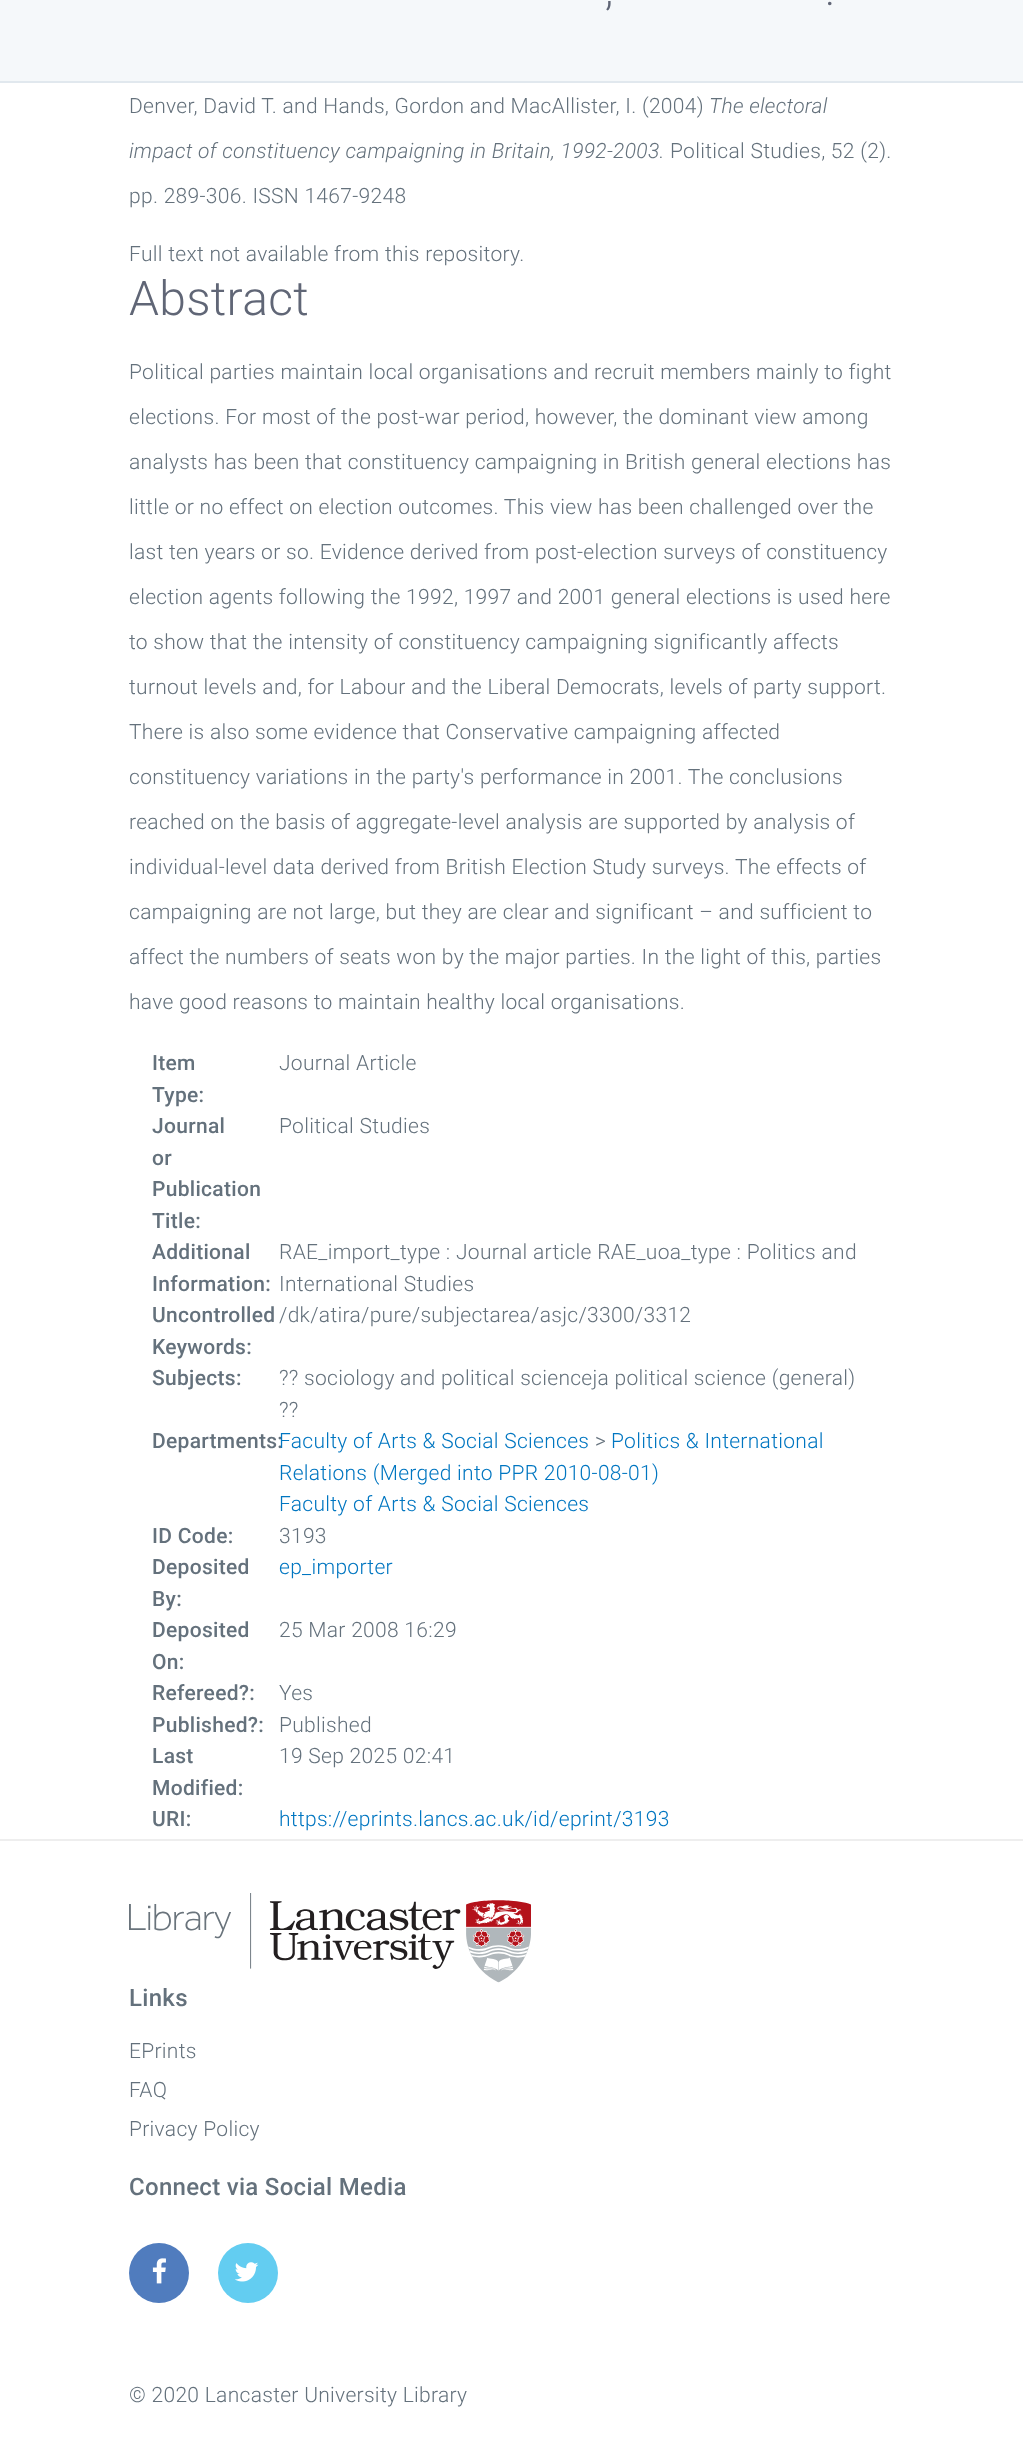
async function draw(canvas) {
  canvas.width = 1023
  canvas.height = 2455
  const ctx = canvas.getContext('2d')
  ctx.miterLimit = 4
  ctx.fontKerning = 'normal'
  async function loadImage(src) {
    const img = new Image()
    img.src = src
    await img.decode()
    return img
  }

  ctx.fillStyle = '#fff'
  ctx.fillRect(0, 0, 1023, 2455)
  ctx.fillStyle = '#f5f8fa'
  ctx.fillRect(0, 0, 1023, 81)
  ctx.fillStyle = '#e1e8ee'
  ctx.fillRect(0, 81, 1023, 2)
  ctx.letterSpacing = '0.3px'
  ctx.font = '300 42px Roboto'
  ctx.fillStyle = '#606676'
  ctx.fillText(',', 605, 5)
  ctx.fillText('.', 825, 5)
  ctx.font = '300 21px Roboto'
  ctx.fillStyle = '#64717c'
  ctx.fillText('Denver, David T. and Hands, Gordon and MacAllister, I. (2004)', 129, 113)
  ctx.font = 'italic 300 21px Roboto'
  ctx.fillText('The electoral', 709, 113)
  ctx.fillText('impact of constituency campaigning in Britain, 1992-2003.', 129, 158)
  ctx.font = '300 21px Roboto'
  ctx.fillText('Political Studies, 52 (2).', 670, 158)
  ctx.fillText('pp. 289-306. ISSN 1467-9248', 129, 203)
  ctx.fillText('Full text not available from this repository.', 129, 261)
  ctx.font = '300 48px Roboto'
  ctx.fillStyle = '#606676'
  ctx.fillText('Abstract', 129, 315)
  ctx.font = '300 21px Roboto'
  ctx.fillStyle = '#64717c'
  ctx.fillText('Political parties maintain local organisations and recruit members mainly to fight', 129, 379)
  ctx.fillText('elections. For most of the post-war period, however, the dominant view among', 129, 424)
  ctx.fillText('analysts has been that constituency campaigning in British general elections has', 129, 469)
  ctx.fillText('little or no effect on election outcomes. This view has been challenged over the', 129, 514)
  ctx.fillText('last ten years or so. Evidence derived from post-election surveys of constituency', 129, 559)
  ctx.fillText('election agents following the 1992, 1997 and 2001 general elections is used here', 129, 604)
  ctx.fillText('to show that the intensity of constituency campaigning significantly affects', 129, 649)
  ctx.fillText('turnout levels and, for Labour and the Liberal Democrats, levels of party support.', 129, 694)
  ctx.fillText('There is also some evidence that Conservative campaigning affected', 129, 739)
  ctx.fillText('constituency variations in the party\'s performance in 2001. The conclusions', 129, 784)
  ctx.fillText('reached on the basis of aggregate-level analysis are supported by analysis of', 129, 829)
  ctx.fillText('individual-level data derived from British Election Study surveys. The effects of', 129, 874)
  ctx.fillText('campaigning are not large, but they are clear and significant – and sufficient to', 129, 919)
  ctx.fillText('affect the numbers of seats won by the major parties. In the light of this, parties', 129, 964)
  ctx.fillText('have good reasons to maintain healthy local organisations.', 129, 1009)
  ctx.font = '500 21px Roboto'
  ctx.fillText('Item', 152, 1070)
  ctx.fillText('Type:', 152, 1102)
  ctx.font = '300 21px Roboto'
  ctx.fillText('Journal Article', 279, 1070)
  ctx.font = '500 21px Roboto'
  ctx.fillText('Journal', 152, 1133)
  ctx.fillText('or', 152, 1165)
  ctx.fillText('Publication', 152, 1196)
  ctx.fillText('Title:', 152, 1228)
  ctx.font = '300 21px Roboto'
  ctx.fillText('Political Studies', 279, 1133)
  ctx.font = '500 21px Roboto'
  ctx.fillText('Additional', 152, 1259)
  ctx.fillText('Information:', 152, 1291)
  ctx.font = '300 21px Roboto'
  ctx.fillText('RAE_import_type : Journal article RAE_uoa_type : Politics and', 279, 1259)
  ctx.fillText('International Studies', 279, 1291)
  ctx.font = '500 21px Roboto'
  ctx.fillText('Uncontrolled', 152, 1322)
  ctx.fillText('Keywords:', 152, 1354)
  ctx.font = '300 21px Roboto'
  ctx.fillText('/dk/atira/pure/subjectarea/asjc/3300/3312', 279, 1322)
  ctx.font = '500 21px Roboto'
  ctx.fillText('Subjects:', 152, 1385)
  ctx.font = '300 21px Roboto'
  ctx.fillText('?? sociology and political scienceja political science (general)', 279, 1385)
  ctx.fillText('??', 279, 1417)
  ctx.font = '500 21px Roboto'
  ctx.fillText('Departments:', 152, 1448)
  ctx.font = '300 21px Roboto'
  ctx.fillStyle = '#0076c1'
  ctx.fillText('Faculty of Arts & Social Sciences', 279, 1448)
  ctx.fillStyle = '#64717c'
  ctx.fillText('>', 595, 1448)
  ctx.fillStyle = '#0076c1'
  ctx.fillText('Politics & International', 611, 1448)
  ctx.fillText('Relations (Merged into PPR 2010-08-01)', 279, 1480)
  ctx.fillText('Faculty of Arts & Social Sciences', 279, 1511)
  ctx.font = '500 21px Roboto'
  ctx.fillStyle = '#64717c'
  ctx.fillText('ID Code:', 152, 1543)
  ctx.font = '300 21px Roboto'
  ctx.fillText('3193', 279, 1543)
  ctx.font = '500 21px Roboto'
  ctx.fillText('Deposited', 152, 1574)
  ctx.fillText('By:', 152, 1606)
  ctx.font = '300 21px Roboto'
  ctx.fillStyle = '#0076c1'
  ctx.fillText('ep_importer', 279, 1574)
  ctx.font = '500 21px Roboto'
  ctx.fillStyle = '#64717c'
  ctx.fillText('Deposited', 152, 1637)
  ctx.fillText('On:', 152, 1669)
  ctx.font = '300 21px Roboto'
  ctx.fillText('25 Mar 2008 16:29', 279, 1637)
  ctx.font = '500 21px Roboto'
  ctx.fillText('Refereed?:', 152, 1700)
  ctx.font = '300 21px Roboto'
  ctx.fillText('Yes', 279, 1700)
  ctx.font = '500 21px Roboto'
  ctx.fillText('Published?:', 152, 1732)
  ctx.font = '300 21px Roboto'
  ctx.fillText('Published', 279, 1732)
  ctx.font = '500 21px Roboto'
  ctx.fillText('Last', 152, 1763)
  ctx.fillText('Modified:', 152, 1795)
  ctx.font = '300 21px Roboto'
  ctx.fillText('19 Sep 2025 02:41', 279, 1763)
  ctx.font = '500 21px Roboto'
  ctx.fillText('URI:', 152, 1826)
  ctx.font = '300 21px Roboto'
  ctx.fillStyle = '#0076c1'
  ctx.fillText('https://eprints.lancs.ac.uk/id/eprint/3193', 279, 1826)
  ctx.fillStyle = '#eee'
  ctx.fillRect(0, 1839, 1023, 2)
  ctx.drawImage(await loadImage('image0.png'), 129, 1893, 402, 90)
  ctx.font = '500 24px Roboto'
  ctx.fillStyle = '#64717c'
  ctx.fillText('Links', 129, 2006)
  ctx.font = '300 21px Roboto'
  ctx.fillText('EPrints', 129, 2058)
  ctx.fillText('FAQ', 129, 2097)
  ctx.fillText('Privacy Policy', 129, 2136)
  ctx.font = '500 24px Roboto'
  ctx.fillText('Connect via Social Media', 129, 2195)
  ctx.fillStyle = '#507cbe'
  ctx.beginPath()
  ctx.arc(159, 2273, 30, 0, 2 * Math.PI)
  ctx.fill()
  ctx.drawImage(await loadImage('image1.png'), 152, 2258, 14, 26)
  ctx.fillStyle = '#63cdf1'
  ctx.beginPath()
  ctx.arc(248, 2273, 30, 0, 2 * Math.PI)
  ctx.fill()
  ctx.drawImage(await loadImage('image2.png'), 235, 2262, 24, 20)
  ctx.font = '300 21px Roboto'
  ctx.fillStyle = '#64717c'
  ctx.fillText('© 2020 Lancaster University Library', 129, 2402)
}

draw(document.querySelector('canvas'))
